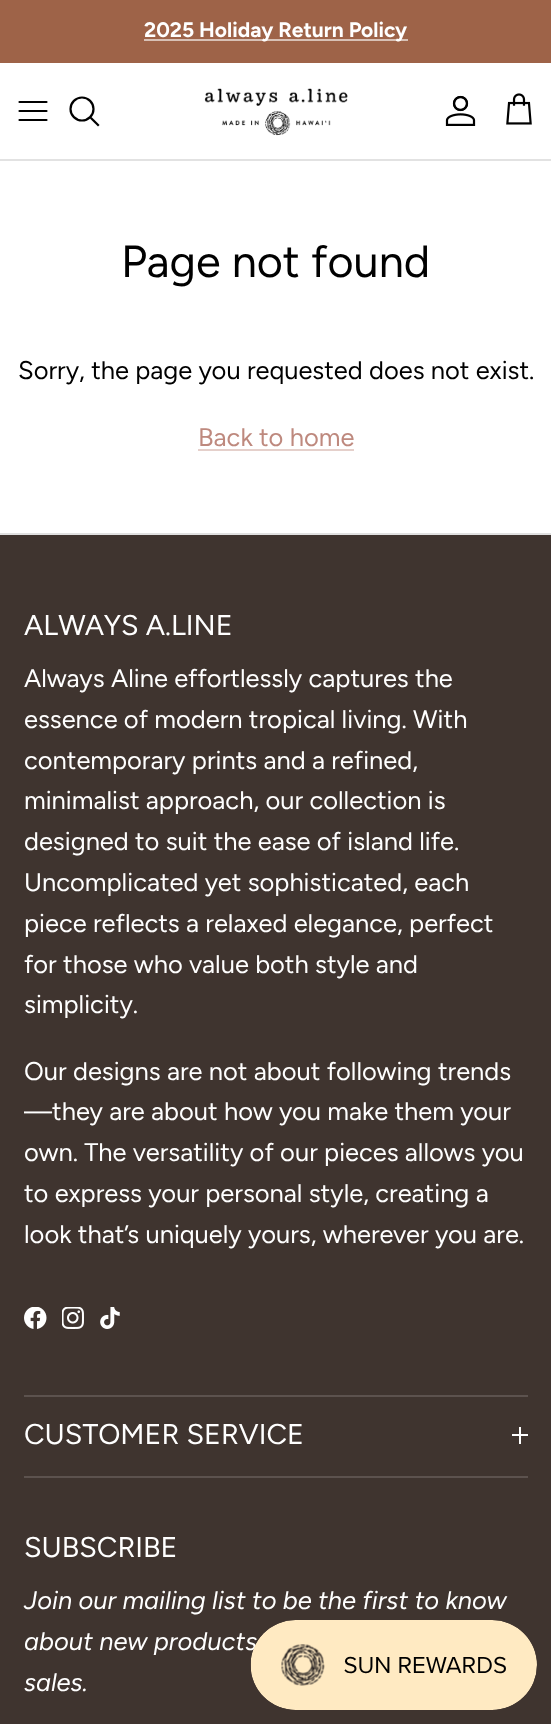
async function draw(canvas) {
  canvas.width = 551
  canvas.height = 1724
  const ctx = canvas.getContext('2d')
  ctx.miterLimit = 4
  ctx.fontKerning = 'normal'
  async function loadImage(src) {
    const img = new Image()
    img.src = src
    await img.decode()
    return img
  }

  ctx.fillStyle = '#fff'
  ctx.fillRect(0, 0, 551, 1724)
  ctx.fillStyle = '#9e6348'
  ctx.fillRect(0, 0, 551, 63)
  ctx.fillStyle = '#d8c1b6'
  ctx.fillRect(144, 39, 264, 2)
  ctx.font = 'bold 21px Figtree'
  ctx.fillStyle = '#fff'
  ctx.fillText('2025 Holiday Return Policy', 144, 37)
  ctx.fillStyle = '#e2e2e2'
  ctx.fillRect(0, 159, 551, 2)
  ctx.beginPath()
  ctx.moveTo(19.5, 111)
  ctx.lineTo(46.5, 111)
  ctx.moveTo(19.5, 102)
  ctx.lineTo(46.5, 102)
  ctx.moveTo(19.5, 120)
  ctx.lineTo(46.5, 120)
  ctx.strokeStyle = '#000'
  ctx.lineWidth = 2.2
  ctx.lineCap = 'round'
  ctx.lineJoin = 'round'
  ctx.stroke()
  ctx.beginPath()
  ctx.arc(82, 109, 11.5, 0, 2 * Math.PI)
  ctx.stroke()
  ctx.beginPath()
  ctx.moveTo(91.5, 118.5)
  ctx.lineTo(98, 125)
  ctx.lineCap = 'square'
  ctx.lineJoin = 'miter'
  ctx.stroke()
  ctx.drawImage(await loadImage('image0.png'), 204, 88, 144, 48)
  ctx.drawImage(await loadImage('image1.png'), 445, 95, 31, 31)
  ctx.drawImage(await loadImage('image2.png'), 506, 93, 26, 32)
  ctx.font = '45px Figtree'
  ctx.fillStyle = '#000'
  ctx.fillText('Page not found', 121, 277)
  ctx.font = '25.5px Figtree'
  ctx.fillText('Sorry, the page you requested does not exist.', 18, 379)
  ctx.fillStyle = '#be897e'
  ctx.fillText('Back to home', 198, 446)
  ctx.fillStyle = '#e5d0cb'
  ctx.fillRect(198, 449, 156, 2)
  ctx.fillStyle = '#3f342f'
  ctx.fillRect(0, 535, 551, 1189)
  ctx.fillStyle = '#e0e0e0'
  ctx.fillRect(0, 533, 551, 2)
  ctx.font = '28.6px Figtree'
  ctx.fillStyle = '#fff'
  ctx.fillText('ALWAYS A.LINE', 24, 635)
  ctx.font = '25.5px Figtree'
  ctx.fillText('Always Aline effortlessly captures the', 24, 687)
  ctx.fillText('essence of modern tropical living. With', 24, 728)
  ctx.fillText('contemporary prints and a refined,', 24, 769)
  ctx.fillText('minimalist approach, our collection is', 24, 809)
  ctx.fillText('designed to suit the ease of island life.', 24, 850)
  ctx.fillText('Uncomplicated yet sophisticated, each', 24, 891)
  ctx.fillText('piece reflects a relaxed elegance, perfect', 24, 932)
  ctx.fillText('for those who value both style and', 24, 973)
  ctx.fillText('simplicity.', 24, 1013)
  ctx.fillText('Our designs are not about following trends', 24, 1080)
  ctx.fillText('—they are about how you make them your', 24, 1120)
  ctx.fillText('own. The versatility of our pieces allows you', 24, 1161)
  ctx.fillText('to express your personal style, creating a', 24, 1202)
  ctx.fillText('look that’s uniquely yours, wherever you are.', 24, 1243)
  ctx.drawImage(await loadImage('image3.png'), 24, 1307, 23, 22)
  ctx.drawImage(await loadImage('image4.png'), 62, 1307, 22, 22)
  ctx.drawImage(await loadImage('image5.png'), 100, 1307, 20, 22)
  ctx.fillStyle = '#5c524e'
  ctx.fillRect(24, 1395, 504, 2)
  ctx.fillRect(24, 1476, 504, 2)
  ctx.font = '28.6px Figtree'
  ctx.fillStyle = '#fff'
  ctx.fillText('CUSTOMER SERVICE', 24, 1444)
  ctx.fillRect(519, 1427, 2, 17)
  ctx.fillRect(512, 1434, 16, 2)
  ctx.fillText('SUBSCRIBE', 24, 1557)
  ctx.font = 'italic 25.5px Figtree'
  ctx.fillText('Join our mailing list to be the first to know', 24, 1609)
  ctx.fillText('about new products', 24, 1650)
  ctx.fillText('sales.', 24, 1691)
  ctx.drawImage(await loadImage('image6.png'), 250, 1620, 287, 90)
}

draw(document.querySelector('canvas'))
